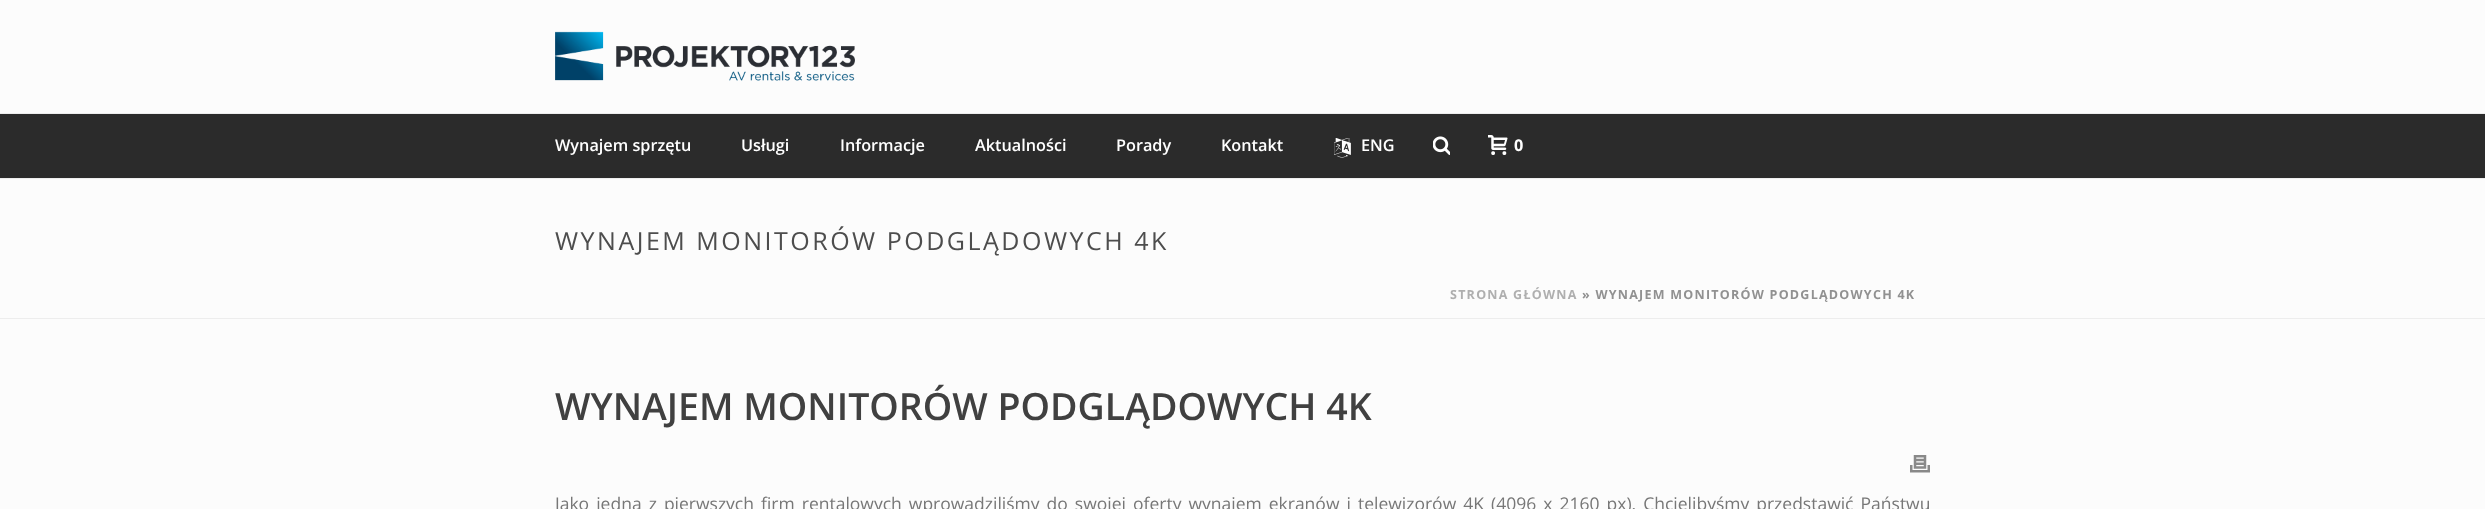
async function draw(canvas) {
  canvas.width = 2485
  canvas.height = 509
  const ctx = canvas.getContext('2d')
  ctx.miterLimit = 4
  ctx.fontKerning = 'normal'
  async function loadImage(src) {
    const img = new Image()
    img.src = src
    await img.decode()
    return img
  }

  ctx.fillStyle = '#fcfcfc'
  ctx.fillRect(0, 0, 2485, 509)
  ctx.fillStyle = '#ededed'
  ctx.fillRect(0, 318, 2485, 1)
  ctx.fillRect(0, 178, 2485, 1)
  ctx.drawImage(await loadImage('image0.png'), 555, 31, 300, 50)
  ctx.fillStyle = '#2b2b2b'
  ctx.fillRect(0, 114, 2485, 64)
  ctx.fillStyle = '#ededed'
  ctx.fillRect(0, 113, 2485, 1)
  ctx.font = '600 16.25px Open Sans'
  ctx.fillStyle = '#fff'
  ctx.fillText('Wynajem sprzętu', 555, 151)
  ctx.fillText('Usługi', 741, 151)
  ctx.fillText('Informacje', 840, 151)
  ctx.fillText('Aktualności', 975, 151)
  ctx.fillText('Porady', 1116, 151)
  ctx.fillText('Kontakt', 1221, 151)
  ctx.drawImage(await loadImage('image1.png'), 1334, 138, 17, 20)
  ctx.fillText('ENG', 1361, 151)
  ctx.drawImage(await loadImage('image2.png'), 1433, 136, 17, 19)
  ctx.drawImage(await loadImage('image3.png'), 1488, 135, 20, 20)
  ctx.font = 'bold 16.25px Open Sans'
  ctx.fillText('0', 1514, 151)
  ctx.letterSpacing = '2.5px'
  ctx.font = '25px Open Sans'
  ctx.fillStyle = '#4d4d4d'
  ctx.fillText('WYNAJEM MONITORÓW PODGLĄDOWYCH 4K', 555, 250)
  ctx.letterSpacing = '1.25px'
  ctx.font = 'bold 12.5px Open Sans'
  ctx.fillStyle = '#afafaf'
  ctx.fillText('STRONA GŁÓWNA', 1450, 299)
  ctx.fillStyle = '#919191'
  ctx.fillText('» WYNAJEM MONITORÓW PODGLĄDOWYCH 4K', 1582, 299)
  ctx.letterSpacing = '0px'
  ctx.font = '600 37.5px Open Sans'
  ctx.fillStyle = '#404040'
  ctx.fillText('WYNAJEM MONITORÓW PODGLĄDOWYCH 4K', 555, 420)
  ctx.drawImage(await loadImage('image4.png'), 1910, 455, 20, 18)
  ctx.wordSpacing = '2.5px'
  ctx.font = '17.5px Open Sans'
  ctx.fillStyle = '#777'
  ctx.fillText('Jako jedna z pierwszych firm rentalowych wprowadziliśmy do swojej oferty wynajem ekranów i telewizorów 4K (4096 x 2160 px). Chcielibyśmy przedstawić Państwu', 555, 510)
}

draw(document.querySelector('canvas'))
